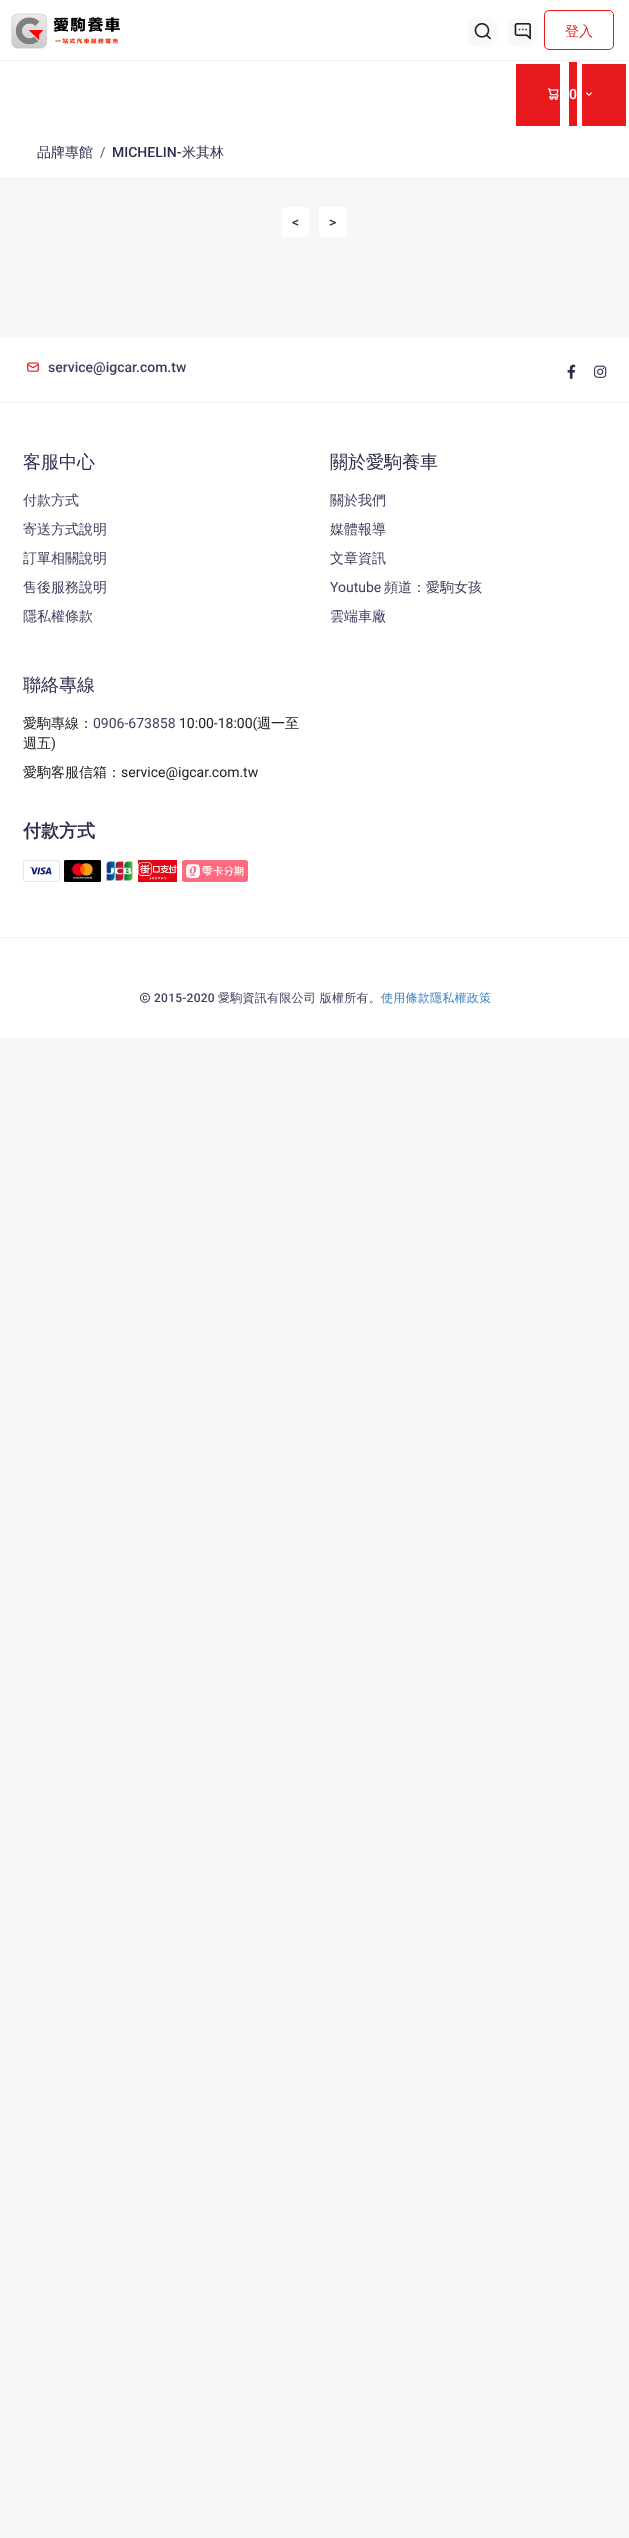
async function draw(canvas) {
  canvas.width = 629
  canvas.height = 2538
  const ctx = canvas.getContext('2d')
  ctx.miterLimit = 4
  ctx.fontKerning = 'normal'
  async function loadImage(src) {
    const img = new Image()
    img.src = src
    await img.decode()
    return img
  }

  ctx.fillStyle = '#f7f7f7'
  ctx.fillRect(0, 0, 629, 2538)
  ctx.fillStyle = '#fff'
  ctx.fillRect(0, 0, 629, 177)
  ctx.drawImage(await loadImage('image0.png'), 11, 13, 109, 36)
  ctx.fillStyle = '#f9f9f9'
  ctx.beginPath()
  ctx.roundRect(468, 17, 30, 30, 10)
  ctx.fill()
  ctx.drawImage(await loadImage('image1.png'), 474, 23, 17, 17)
  ctx.beginPath()
  ctx.roundRect(508, 17, 30, 30, 10)
  ctx.fill()
  ctx.drawImage(await loadImage('image2.png'), 514, 23, 17, 17)
  ctx.beginPath()
  ctx.roundRect(544.5, 10.5, 69, 39, 4.5)
  ctx.strokeStyle = '#e8191c'
  ctx.stroke()
  ctx.font = '500 14px WenQuanYi Zen Hei'
  ctx.fillStyle = '#e8191c'
  ctx.fillText('登入', 565, 36)
  ctx.fillStyle = '#efefef'
  ctx.fillRect(0, 60, 629, 1)
  ctx.fillStyle = '#e8191c'
  ctx.fillRect(516, 64, 44, 62)
  ctx.fillRect(569, 62, 8, 64)
  ctx.fillRect(582, 64, 44, 62)
  ctx.drawImage(await loadImage('image3.png'), 548, 88, 11, 12)
  ctx.font = '500 14px Roboto'
  ctx.fillStyle = '#fff'
  ctx.fillText('0', 569, 99)
  ctx.drawImage(await loadImage('image4.png'), 586, 92, 6, 4)
  ctx.font = '500 14px WenQuanYi Zen Hei'
  ctx.fillStyle = '#2b2f4c'
  ctx.fillText('品牌專館', 37, 157)
  ctx.font = '500 14px Roboto'
  ctx.fillStyle = '#6c757d'
  ctx.fillText('/', 100, 157)
  ctx.fillStyle = '#2b2f4c'
  ctx.fillText('MICHELIN-', 112, 157)
  ctx.font = '500 14px WenQuanYi Zen Hei'
  ctx.fillText('米其林', 182, 157)
  ctx.fillStyle = '#fff'
  ctx.beginPath()
  ctx.roundRect(282, 207, 27, 30, 3)
  ctx.fill()
  ctx.font = '500 14px Roboto'
  ctx.fillStyle = '#2b2f4c'
  ctx.fillText('<', 292, 227)
  ctx.fillStyle = '#fff'
  ctx.beginPath()
  ctx.roundRect(319, 207, 28, 30, 3)
  ctx.fill()
  ctx.fillStyle = '#2b2f4c'
  ctx.fillText('>', 329, 227)
  ctx.fillStyle = '#fff'
  ctx.fillRect(0, 337, 629, 701)
  ctx.fillStyle = '#f5f5f5'
  ctx.fillRect(0, 402, 629, 1)
  ctx.drawImage(await loadImage('image5.png'), 27, 362, 12, 10)
  ctx.fillStyle = '#3e3f5e'
  ctx.fillText('service@igcar.com.tw', 48, 372)
  ctx.drawImage(await loadImage('image6.png'), 567, 364, 9, 15)
  ctx.drawImage(await loadImage('image7.png'), 594, 365, 13, 13)
  ctx.fillStyle = '#f5f5f5'
  ctx.fillRect(0, 937, 629, 1)
  ctx.font = '500 18px WenQuanYi Zen Hei'
  ctx.fillStyle = '#2b2f4c'
  ctx.fillText('客服中心', 23, 468)
  ctx.font = '500 14px WenQuanYi Zen Hei'
  ctx.fillStyle = '#3e3f5e'
  ctx.fillText('付款方式', 23, 505)
  ctx.fillText('寄送方式說明', 23, 534)
  ctx.fillText('訂單相關說明', 23, 563)
  ctx.fillText('售後服務說明', 23, 592)
  ctx.fillText('隱私權條款', 23, 621)
  ctx.font = '500 18px WenQuanYi Zen Hei'
  ctx.fillStyle = '#2b2f4c'
  ctx.fillText('關於愛駒養車', 330, 468)
  ctx.font = '500 14px WenQuanYi Zen Hei'
  ctx.fillStyle = '#3e3f5e'
  ctx.fillText('關於我們', 330, 505)
  ctx.fillText('媒體報導', 330, 534)
  ctx.fillText('文章資訊', 330, 563)
  ctx.font = '14px Roboto'
  ctx.fillText('Youtube', 330, 592)
  ctx.font = '500 14px WenQuanYi Zen Hei'
  ctx.fillText('頻道：愛駒女孩', 384, 592)
  ctx.fillText('雲端車廠', 330, 621)
  ctx.font = '500 18px WenQuanYi Zen Hei'
  ctx.fillStyle = '#2b2f4c'
  ctx.fillText('聯絡專線', 23, 691)
  ctx.font = '500 14px WenQuanYi Zen Hei'
  ctx.fillStyle = '#212121'
  ctx.fillText('愛駒專線：', 23, 728)
  ctx.font = '14px Roboto'
  ctx.fillStyle = '#3e3f5e'
  ctx.fillText('0906-673858', 93, 728)
  ctx.fillStyle = '#212121'
  ctx.fillText('10:00-18:00(', 179, 728)
  ctx.font = '500 14px WenQuanYi Zen Hei'
  ctx.fillText('週一至', 257, 728)
  ctx.fillText('週五', 23, 748)
  ctx.font = '14px Roboto'
  ctx.fillText(')', 51, 748)
  ctx.font = '500 14px WenQuanYi Zen Hei'
  ctx.fillText('愛駒客服信箱：', 23, 777)
  ctx.font = '14px Roboto'
  ctx.fillText('service@igcar.com.tw', 121, 777)
  ctx.font = 'bold 18px WenQuanYi Zen Hei'
  ctx.fillStyle = '#2b2f4c'
  ctx.fillText('付款方式', 23, 837)
  ctx.drawImage(await loadImage('image8.png'), 23, 860, 37, 22)
  ctx.drawImage(await loadImage('image9.png'), 64, 860, 37, 22)
  ctx.drawImage(await loadImage('image10.png'), 106, 861, 27, 20)
  ctx.drawImage(await loadImage('image11.png'), 138, 860, 39, 22)
  ctx.drawImage(await loadImage('image12.png'), 182, 860, 66, 22)
  ctx.drawImage(await loadImage('image13.png'), 140, 992, 10, 11)
  ctx.letterSpacing = '0.25px'
  ctx.font = '500 12px Roboto'
  ctx.fillStyle = '#3e3f5e'
  ctx.fillText('2015-2020', 154, 1002)
  ctx.font = '500 12px WenQuanYi Zen Hei'
  ctx.fillText('愛駒資訊有限公司 版權所有。', 218, 1002)
  ctx.fillStyle = '#4183c4'
  ctx.fillText('使用條款隱私權政策', 381, 1002)
}

draw(document.querySelector('canvas'))
